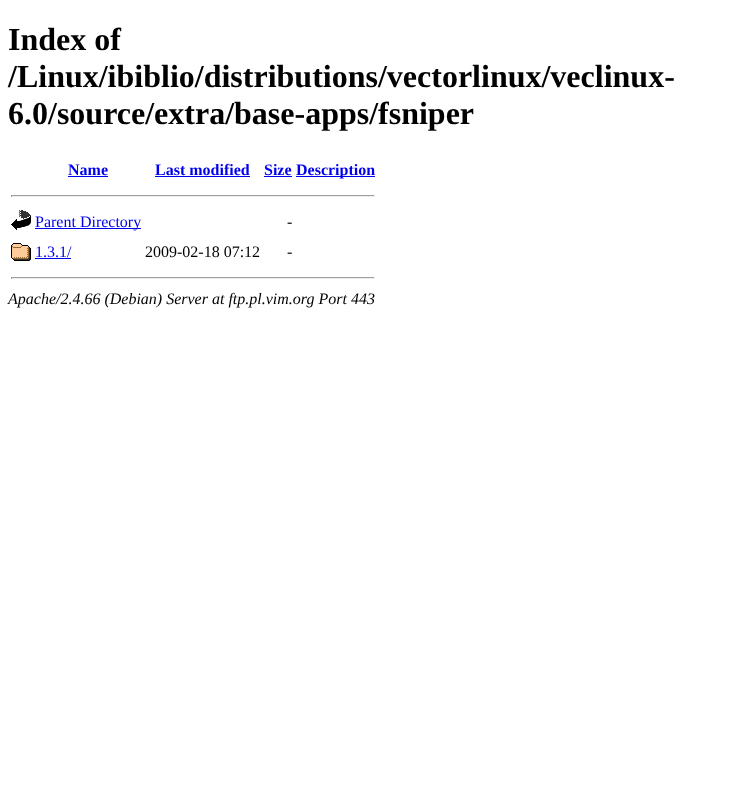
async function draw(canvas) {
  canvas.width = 732
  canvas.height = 790
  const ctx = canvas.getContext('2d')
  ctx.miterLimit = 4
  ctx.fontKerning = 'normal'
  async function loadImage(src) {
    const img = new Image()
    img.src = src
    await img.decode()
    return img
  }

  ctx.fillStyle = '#fff'
  ctx.fillRect(0, 0, 732, 790)
  ctx.font = 'bold 32px Liberation Serif'
  ctx.fillStyle = '#000'
  ctx.fillText('Index of', 8, 50)
  ctx.fillText('/Linux/ibiblio/distributions/vectorlinux/veclinux-', 8, 87)
  ctx.fillText('6.0/source/extra/base-apps/fsniper', 8, 124)
  ctx.font = 'bold 16px Liberation Serif'
  ctx.fillStyle = '#00e'
  ctx.fillText('Name', 68, 175)
  ctx.fillRect(68, 176, 40, 1)
  ctx.fillText('Last modified', 155, 175)
  ctx.fillRect(155, 176, 95, 1)
  ctx.fillText('Size', 264, 175)
  ctx.fillRect(264, 176, 28, 1)
  ctx.fillRect(296, 176, 79, 1)
  ctx.fillText('Description', 296, 175)
  ctx.fillStyle = '#9f9f9f'
  ctx.fillRect(11, 195, 364, 1)
  ctx.fillStyle = '#eee'
  ctx.fillRect(374, 195, 1, 2)
  ctx.fillRect(11, 196, 364, 1)
  ctx.fillStyle = '#9f9f9f'
  ctx.fillRect(11, 195, 1, 2)
  ctx.drawImage(await loadImage('image0.png'), 11, 210, 20, 20)
  ctx.fillStyle = '#00e'
  ctx.fillRect(35, 228, 106, 1)
  ctx.font = '16px Liberation Serif'
  ctx.fillText('Parent Directory', 35, 227)
  ctx.fillStyle = '#000'
  ctx.fillText('-', 287, 227)
  ctx.drawImage(await loadImage('image1.png'), 11, 243, 20, 18)
  ctx.fillStyle = '#00e'
  ctx.fillText('1.3.1/', 35, 257)
  ctx.fillRect(35, 258, 36, 1)
  ctx.fillStyle = '#000'
  ctx.fillText('2009-02-18 07:12', 145, 257)
  ctx.fillText('-', 287, 257)
  ctx.fillStyle = '#9f9f9f'
  ctx.fillRect(11, 277, 364, 1)
  ctx.fillStyle = '#eee'
  ctx.fillRect(374, 277, 1, 2)
  ctx.fillRect(11, 278, 364, 1)
  ctx.fillStyle = '#9f9f9f'
  ctx.fillRect(11, 277, 1, 2)
  ctx.font = 'italic 16px Liberation Serif'
  ctx.fillStyle = '#000'
  ctx.fillText('Apache/2.4.66 (Debian) Server at ftp.pl.vim.org Port 443', 8, 304)
}

draw(document.querySelector('canvas'))
